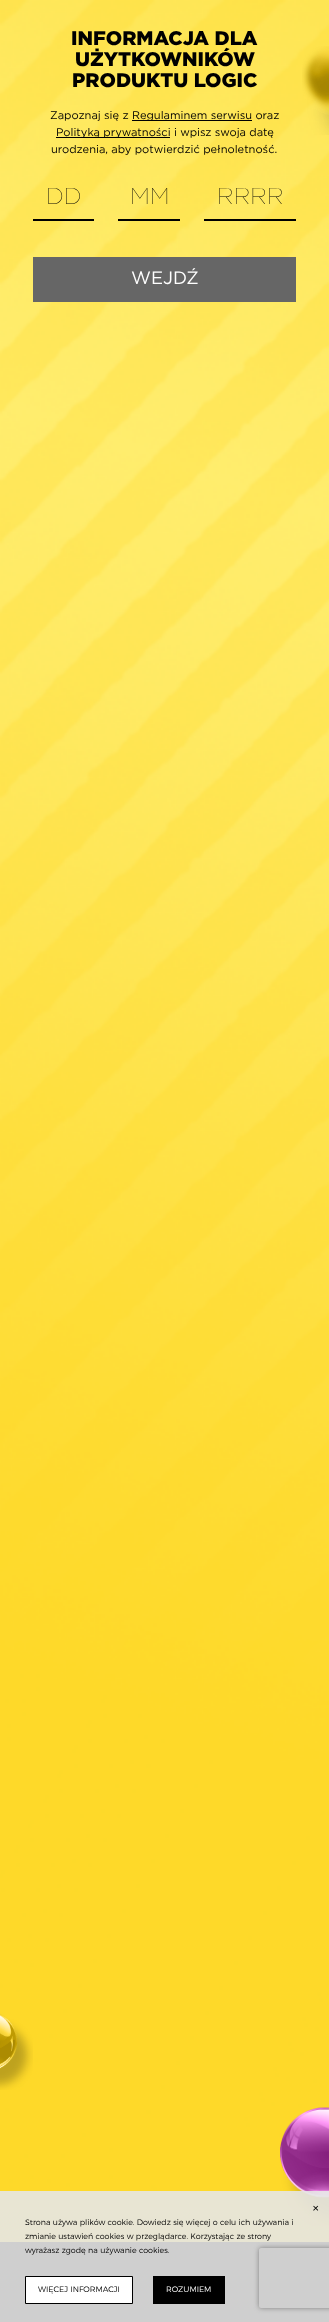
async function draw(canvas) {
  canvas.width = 329
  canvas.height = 2322
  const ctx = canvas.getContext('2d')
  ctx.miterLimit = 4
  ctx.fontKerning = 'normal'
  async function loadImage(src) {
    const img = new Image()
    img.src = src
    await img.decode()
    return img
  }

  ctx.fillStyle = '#000'
  ctx.fillRect(0, 0, 329, 2322)
  ctx.drawImage(await loadImage('image0.png'), 0, 0, 329, 2242)
  ctx.font = '900 19.75px Gotham'
  ctx.fillText('INFORMACJA DLA', 71, 45)
  ctx.fillText('UŻYTKOWNIKÓW', 75, 66)
  ctx.fillText('PRODUKTU LOGIC', 72, 87)
  ctx.font = '11.1px Gotham'
  ctx.fillText('Zapoznaj się z', 50, 119)
  ctx.fillRect(132, 120, 120, 1)
  ctx.fillText('Regulaminem serwisu oraz', 132, 119)
  ctx.fillRect(56, 137, 114, 1)
  ctx.fillText('Polityką prywatności i wpisz swoja datę', 56, 136)
  ctx.fillText('urodzenia, aby potwierdzić pełnoletność.', 51, 153)
  ctx.font = '100 23px Gotham'
  ctx.fillText('DD', 46, 204)
  ctx.fillRect(33, 219, 61, 2)
  ctx.fillText('MM', 130, 204)
  ctx.fillRect(118, 219, 62, 2)
  ctx.fillText('RRRR', 217, 204)
  ctx.fillRect(204, 219, 92, 2)
  ctx.fillStyle = '#666'
  ctx.fillRect(33, 257, 263, 45)
  ctx.font = '18px Gotham'
  ctx.fillStyle = '#fff'
  ctx.fillText('WEJDŹ', 131, 284)
  ctx.drawImage(await loadImage('image1.png'), 302, 46, 27, 89)
  ctx.drawImage(await loadImage('image2.png'), 0, 2014, 33, 76)
  ctx.drawImage(await loadImage('image3.png'), 280, 2107, 49, 119)
  ctx.fillStyle = '#e6e6e6e6'
  ctx.fillRect(0, 2191, 329, 131)
  ctx.font = '300 15px Montserrat'
  ctx.fillStyle = '#000'
  ctx.fillText('×', 312, 2213)
  ctx.font = '300 7.9px Montserrat'
  ctx.fillText('Strona używa plików cookie. Dowiedz się więcej o celu ich używania i', 25, 2225)
  ctx.fillText('zmianie ustawień cookies w przeglądarce. Korzystając ze strony', 25, 2239)
  ctx.fillText('wyrażasz zgodę na używanie cookies.', 25, 2253)
  ctx.fillStyle = '#fff'
  ctx.beginPath()
  ctx.rect(25.5, 2276.5, 107, 27)
  ctx.fill()
  ctx.strokeStyle = '#000'
  ctx.stroke()
  ctx.fillStyle = '#000'
  ctx.fillText('WIĘCEJ INFORMACJI', 38, 2292)
  ctx.fillRect(153, 2276, 72, 28)
  ctx.fillStyle = '#fff'
  ctx.fillText('ROZUMIEM', 166, 2292)
  ctx.save()
  ctx.beginPath()
  ctx.moveTo(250, 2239)
  ctx.lineTo(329, 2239)
  ctx.lineTo(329, 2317)
  ctx.lineTo(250, 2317)
  ctx.closePath()
  ctx.moveTo(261, 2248)
  ctx.lineTo(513, 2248)
  ctx.bezierCurveTo(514, 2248, 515, 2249, 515, 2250)
  ctx.lineTo(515, 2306)
  ctx.bezierCurveTo(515, 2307, 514, 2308, 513, 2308)
  ctx.lineTo(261, 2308)
  ctx.bezierCurveTo(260, 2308, 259, 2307, 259, 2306)
  ctx.lineTo(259, 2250)
  ctx.bezierCurveTo(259, 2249, 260, 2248, 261, 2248)
  ctx.closePath()
  ctx.clip('evenodd')
  ctx.fillStyle = '#808080'
  ctx.filter = 'blur(2.5px)'
  ctx.beginPath()
  ctx.roundRect(259, 2248, 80, 60, 2)
  ctx.fill()
  ctx.filter = 'none'
  ctx.restore()
}

draw(document.querySelector('canvas'))
